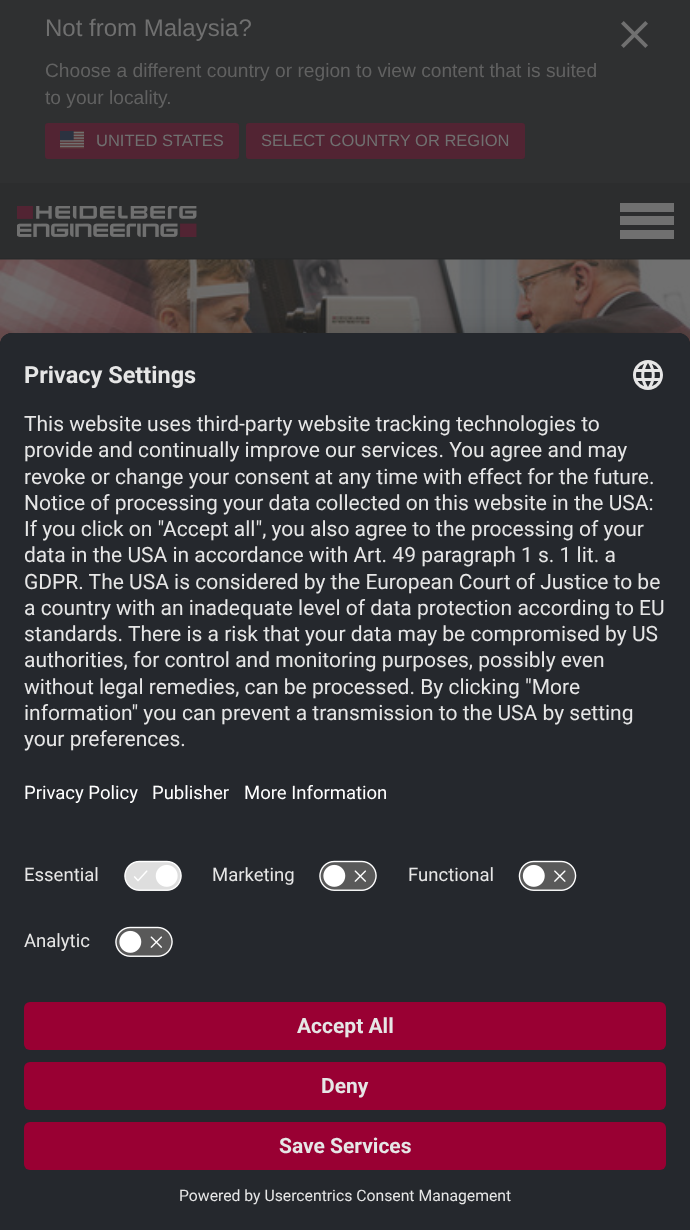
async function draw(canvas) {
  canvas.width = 690
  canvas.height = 1230
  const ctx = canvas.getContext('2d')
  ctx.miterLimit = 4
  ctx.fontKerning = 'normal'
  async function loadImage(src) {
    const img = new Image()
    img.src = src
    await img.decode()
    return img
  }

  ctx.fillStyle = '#2f3031'
  ctx.fillRect(0, 0, 690, 1230)
  ctx.font = '24px Liberation Sans'
  ctx.fillStyle = '#707070'
  ctx.fillText('Not from Malaysia?', 45, 36)
  ctx.font = '19.2px Liberation Sans'
  ctx.fillStyle = '#616161'
  ctx.fillText('Choose a different country or region to view content that is suited', 45, 77)
  ctx.fillText('to your locality.', 45, 104)
  ctx.drawImage(await loadImage('image0.png'), 621, 21, 27, 27)
  ctx.fillStyle = '#522433'
  ctx.beginPath()
  ctx.roundRect(46, 124, 192, 34, 2)
  ctx.fill()
  ctx.strokeStyle = '#522433'
  ctx.lineWidth = 2
  ctx.stroke()
  ctx.drawImage(await loadImage('image1.png'), 60, 131, 24, 18)
  ctx.font = '16.5px Liberation Sans'
  ctx.fillStyle = '#707070'
  ctx.fillText('UNITED STATES', 96, 146)
  ctx.fillStyle = '#522433'
  ctx.beginPath()
  ctx.roundRect(247, 124, 277, 34, 2)
  ctx.fill()
  ctx.stroke()
  ctx.fillStyle = '#707070'
  ctx.fillText('SELECT COUNTRY OR REGION', 261, 146)
  ctx.fillStyle = '#2c2d2e'
  ctx.fillRect(0, 183, 690, 75)
  ctx.fillStyle = '#292a2b'
  ctx.fillRect(0, 258, 690, 2)
  ctx.drawImage(await loadImage('image2.png'), 17, 206, 180, 31)
  ctx.fillStyle = '#707070'
  ctx.fillRect(620, 203, 54, 9)
  ctx.fillRect(620, 216, 54, 9)
  ctx.fillRect(620, 230, 54, 9)
  ctx.drawImage(await loadImage('image3.png'), 0, 259, 690, 86)
  ctx.fillStyle = '#0000004d'
  ctx.filter = 'blur(21px)'
  ctx.beginPath()
  ctx.roundRect(0, 363, 690, 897, 12)
  ctx.fill()
  ctx.filter = 'none'
  ctx.fillStyle = '#00000038'
  ctx.filter = 'blur(19.5px)'
  ctx.beginPath()
  ctx.roundRect(0, 341, 690, 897, 12)
  ctx.fill()
  ctx.filter = 'none'
  ctx.fillStyle = '#25282d'
  ctx.beginPath()
  ctx.roundRect(0, 333, 690, 897, [12, 12, 0, 0])
  ctx.fill()
  ctx.beginPath()
  ctx.roundRect(0, 333, 690, 651, [12, 12, 0, 0])
  ctx.fill()
  ctx.beginPath()
  ctx.roundRect(0, 333, 690, 519, [12, 12, 0, 0])
  ctx.fill()
  ctx.font = 'bold 23.5px Roboto'
  ctx.fillStyle = '#e6e6e6'
  ctx.fillText('Privacy Settings', 24, 383)
  ctx.drawImage(await loadImage('image4.png'), 633, 360, 30, 30)
  ctx.font = '21px Roboto'
  ctx.fillText('This website uses third-party website tracking technologies to', 24, 431)
  ctx.fillText('provide and continually improve our services. You agree and may', 24, 457)
  ctx.fillText('revoke or change your consent at any time with effect for the future.', 24, 484)
  ctx.fillText('Notice of processing your data collected on this website in the USA:', 24, 510)
  ctx.fillText('If you click on "Accept all", you also agree to the processing of your', 24, 536)
  ctx.fillText('data in the USA in accordance with Art. 49 paragraph 1 s. 1 lit. a', 24, 562)
  ctx.fillText('GDPR. The USA is considered by the European Court of Justice to be', 24, 589)
  ctx.fillText('a country with an inadequate level of data protection according to EU', 24, 615)
  ctx.fillText('standards. There is a risk that your data may be compromised by US', 24, 641)
  ctx.fillText('authorities, for control and monitoring purposes, possibly even', 24, 667)
  ctx.fillText('without legal remedies, can be processed. By clicking "More', 24, 694)
  ctx.fillText('information" you can prevent a transmission to the USA by setting', 24, 720)
  ctx.fillText('your preferences.', 24, 746)
  ctx.font = '18.5px Roboto'
  ctx.fillStyle = '#fff'
  ctx.fillText('Privacy Policy', 24, 799)
  ctx.fillText('Publisher', 152, 799)
  ctx.fillText('More Information', 244, 799)
  ctx.fillStyle = '#e6e6e6'
  ctx.fillText('Essential', 24, 881)
  ctx.drawImage(await loadImage('image5.png'), 124, 860, 58, 31)
  ctx.fillText('Marketing', 212, 881)
  ctx.drawImage(await loadImage('image6.png'), 319, 860, 58, 31)
  ctx.fillText('Functional', 408, 881)
  ctx.drawImage(await loadImage('image7.png'), 518, 860, 59, 31)
  ctx.fillText('Analytic', 24, 947)
  ctx.drawImage(await loadImage('image6.png'), 115, 926, 58, 31)
  ctx.fillStyle = '#903'
  ctx.beginPath()
  ctx.roundRect(24, 1002, 642, 48, 6)
  ctx.fill()
  ctx.font = 'bold 21px Roboto'
  ctx.fillStyle = '#e6e6e6'
  ctx.fillText('Accept All', 297, 1033)
  ctx.fillStyle = '#903'
  ctx.beginPath()
  ctx.roundRect(24, 1062, 642, 48, 6)
  ctx.fill()
  ctx.fillStyle = '#e6e6e6'
  ctx.fillText('Deny', 321, 1093)
  ctx.fillStyle = '#903'
  ctx.beginPath()
  ctx.roundRect(24, 1122, 642, 48, 6)
  ctx.fill()
  ctx.fillStyle = '#e6e6e6'
  ctx.fillText('Save Services', 279, 1153)
  ctx.font = '15.75px Roboto'
  ctx.fillText('Powered by Usercentrics Consent Management', 179, 1201)
}

draw(document.querySelector('canvas'))
